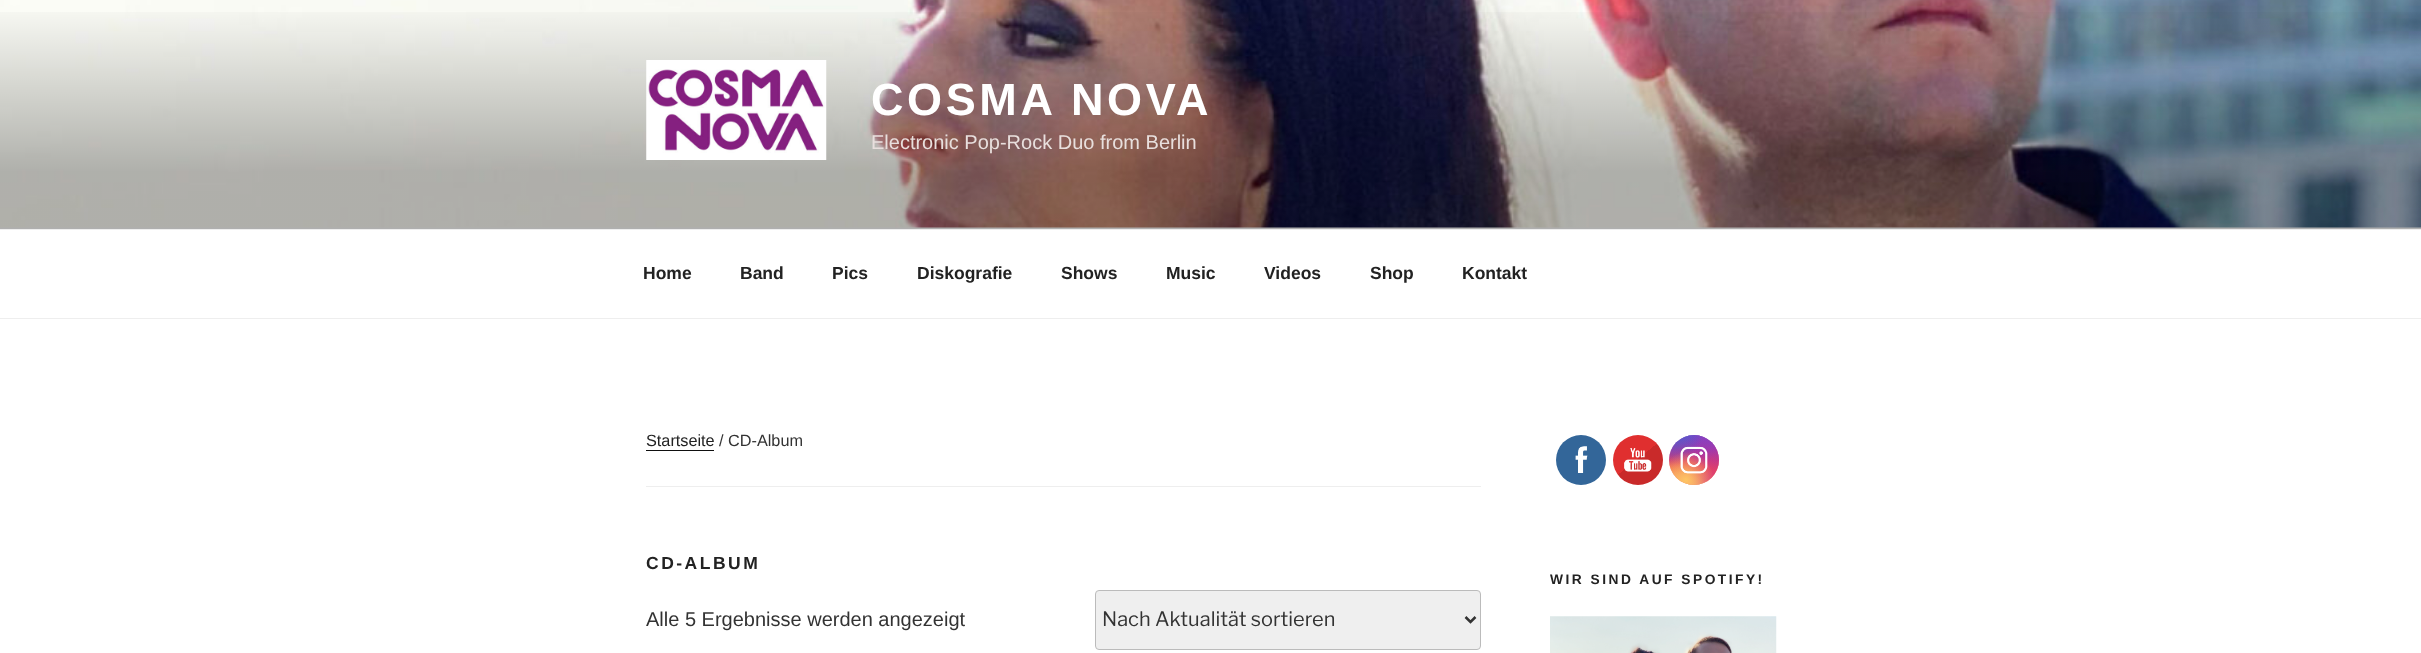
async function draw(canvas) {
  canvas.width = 2421
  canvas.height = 653
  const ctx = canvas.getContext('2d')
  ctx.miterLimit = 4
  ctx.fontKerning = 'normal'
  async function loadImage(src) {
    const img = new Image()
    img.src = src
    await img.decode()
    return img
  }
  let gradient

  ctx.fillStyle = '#fff'
  ctx.fillRect(0, 0, 2421, 653)
  ctx.fillStyle = '#fafafa'
  ctx.fillRect(0, 227, 2421, 2)
  ctx.drawImage(await loadImage('image0.png'), 0, 0, 2421, 228)
  gradient = ctx.createLinearGradient(1211, 0, 1211, 229)
  gradient.addColorStop(0, '#00000000')
  gradient.addColorStop(0.75, '#0000004d')
  gradient.addColorStop(1, '#0000004d')
  ctx.fillStyle = gradient
  ctx.fillRect(0, 12, 2421, 217)
  ctx.drawImage(await loadImage('image1.png'), 646, 60, 181, 100)
  ctx.letterSpacing = '3.6px'
  ctx.font = 'bold 45px Liberation Sans'
  ctx.fillStyle = '#fff'
  ctx.fillText('COSMA NOVA', 871, 115)
  ctx.letterSpacing = '0px'
  ctx.font = '20px Liberation Sans'
  ctx.fillStyle = '#e8dfdd'
  ctx.fillText('Electronic Pop-Rock Duo from Berlin', 871, 149)
  ctx.fillStyle = '#eee'
  ctx.fillRect(0, 229, 2421, 1)
  ctx.fillRect(0, 318, 2421, 1)
  ctx.font = 'bold 17.5px Liberation Sans'
  ctx.fillStyle = '#222'
  ctx.fillText('Home', 643, 279)
  ctx.fillText('Band', 740, 279)
  ctx.fillText('Pics', 832, 279)
  ctx.fillText('Diskografie', 917, 279)
  ctx.fillText('Shows', 1061, 279)
  ctx.fillText('Music', 1166, 279)
  ctx.fillText('Videos', 1264, 279)
  ctx.fillText('Shop', 1370, 279)
  ctx.fillText('Kontakt', 1462, 279)
  ctx.fillStyle = '#eee'
  ctx.fillRect(646, 486, 835, 1)
  ctx.font = '16.25px Liberation Sans'
  ctx.fillStyle = '#222'
  ctx.fillText('Startseite', 646, 446)
  ctx.fillStyle = '#0f0f0f'
  ctx.beginPath()
  ctx.moveTo(646, 433)
  ctx.lineTo(646, 451)
  ctx.lineTo(714, 451)
  ctx.lineTo(714, 433)
  ctx.lineTo(714, 450)
  ctx.lineTo(646, 450)
  ctx.closePath()
  ctx.fill()
  ctx.fillStyle = '#333'
  ctx.fillText('/ CD-Album', 719, 446)
  ctx.letterSpacing = '2.5px'
  ctx.font = 'bold 17.5px Liberation Sans'
  ctx.fillStyle = '#222'
  ctx.fillText('CD-ALBUM', 646, 569)
  ctx.letterSpacing = '0px'
  ctx.font = '20px Liberation Sans'
  ctx.fillStyle = '#333'
  ctx.fillText('Alle 5 Ergebnisse werden angezeigt', 646, 626)
  ctx.fillStyle = '#efefef'
  ctx.beginPath()
  ctx.roundRect(1095.5, 590.5, 385, 59, 3.5)
  ctx.fill()
  ctx.strokeStyle = '#bbb'
  ctx.stroke()
  ctx.beginPath()
  ctx.moveTo(1465.5, 617)
  ctx.lineTo(1470.5, 622)
  ctx.lineTo(1475.5, 617)
  ctx.strokeStyle = '#333'
  ctx.lineWidth = 2.5
  ctx.stroke()
  ctx.font = '100 20px Libre Franklin'
  ctx.fillStyle = '#333'
  ctx.fillText('Nach Aktualität sortieren', 1102, 626)
  ctx.fillStyle = '#369'
  ctx.beginPath()
  ctx.arc(1581, 460, 25, 0, 2 * Math.PI)
  ctx.fill()
  ctx.drawImage(await loadImage('image2.png'), 1575, 446, 13, 27)
  gradient = ctx.createLinearGradient(1616, 433, 1659, 487)
  gradient.addColorStop(0.14, '#e02f2f')
  gradient.addColorStop(0.49, '#e02f2f')
  gradient.addColorStop(0.49, '#c92a2a')
  gradient.addColorStop(0.85, '#c92a2a')
  ctx.fillStyle = gradient
  ctx.beginPath()
  ctx.arc(1638, 460, 25, 0, 2 * Math.PI)
  ctx.fill()
  ctx.drawImage(await loadImage('image3.png'), 1624, 448, 28, 24)
  gradient = ctx.createLinearGradient(1694, 435, 1694, 485)
  gradient.addColorStop(0, '#6559ca')
  gradient.addColorStop(0.3, '#bc318f')
  gradient.addColorStop(0.5, '#e33f5f')
  gradient.addColorStop(0.7, '#f77638')
  gradient.addColorStop(1, '#fec66d')
  ctx.fillStyle = gradient
  ctx.beginPath()
  ctx.arc(1694, 460, 25, 0, 2 * Math.PI)
  ctx.fill()
  gradient = ctx.createRadialGradient(1719, 485, 0, 1719, 485, 71)
  gradient.addColorStop(0, '#d9317a')
  gradient.addColorStop(1, '#d9317a00')
  ctx.fillStyle = gradient
  ctx.beginPath()
  ctx.arc(1694, 460, 25, 0, 2 * Math.PI)
  ctx.fill()
  gradient = ctx.createRadialGradient(1699, 210, 0, 1699, 210, 42)
  gradient.addColorStop(0, '#893dc2')
  gradient.addColorStop(0.5, '#893dc200')
  ctx.fillStyle = gradient
  ctx.beginPath()
  ctx.arc(1694, 460, 25, 0, 2 * Math.PI)
  ctx.save()
  ctx.clip()
  ctx.scale(1, 85 / 42)
  ctx.fillRect(0, 0, 2421, 323)
  ctx.restore()
  gradient = ctx.createRadialGradient(1719, 435, 0, 1719, 435, 71)
  gradient.addColorStop(0, '#893dc2')
  gradient.addColorStop(0.5, '#893dc200')
  ctx.fillStyle = gradient
  ctx.beginPath()
  ctx.arc(1694, 460, 25, 0, 2 * Math.PI)
  ctx.fill()
  gradient = ctx.createRadialGradient(1679, 220.47, 0, 1679, 220.47, 57)
  gradient.addColorStop(0, '#5258cf')
  gradient.addColorStop(0.5, '#5258cf00')
  ctx.fillStyle = gradient
  ctx.beginPath()
  ctx.arc(1694, 460, 25, 0, 2 * Math.PI)
  ctx.save()
  ctx.clip()
  ctx.scale(1, 106 / 57)
  ctx.fillRect(0, 0, 2421, 352)
  ctx.restore()
  gradient = ctx.createRadialGradient(1669, 341.28, 0, 1669, 341.28, 71)
  gradient.addColorStop(0, '#5258cf')
  gradient.addColorStop(0.5, '#5258cf00')
  ctx.fillStyle = gradient
  ctx.beginPath()
  ctx.arc(1694, 460, 25, 0, 2 * Math.PI)
  ctx.save()
  ctx.clip()
  ctx.scale(1, 88 / 71)
  ctx.fillRect(0, 0, 2421, 527)
  ctx.restore()
  gradient = ctx.createRadialGradient(1669, 505, 0, 1669, 505, 86)
  gradient.addColorStop(0, '#fec564')
  gradient.addColorStop(0.5, '#fec56400')
  ctx.fillStyle = gradient
  ctx.beginPath()
  ctx.arc(1694, 460, 25, 0, 2 * Math.PI)
  ctx.fill()
  gradient = ctx.createRadialGradient(1686, 480, 0, 1686, 480, 56)
  gradient.addColorStop(0, '#fec564')
  gradient.addColorStop(0.5, '#fec56400')
  ctx.fillStyle = gradient
  ctx.beginPath()
  ctx.arc(1694, 460, 25, 0, 2 * Math.PI)
  ctx.fill()
  ctx.drawImage(await loadImage('image4.png'), 1680, 446, 28, 28)
  ctx.letterSpacing = '2.5px'
  ctx.font = 'bold 13.75px Liberation Sans'
  ctx.fillStyle = '#222'
  ctx.fillText('WIR SIND AUF SPOTIFY!', 1550, 584)
  ctx.drawImage(await loadImage('image5.png'), 1550, 616, 227, 37)
}

draw(document.querySelector('canvas'))
